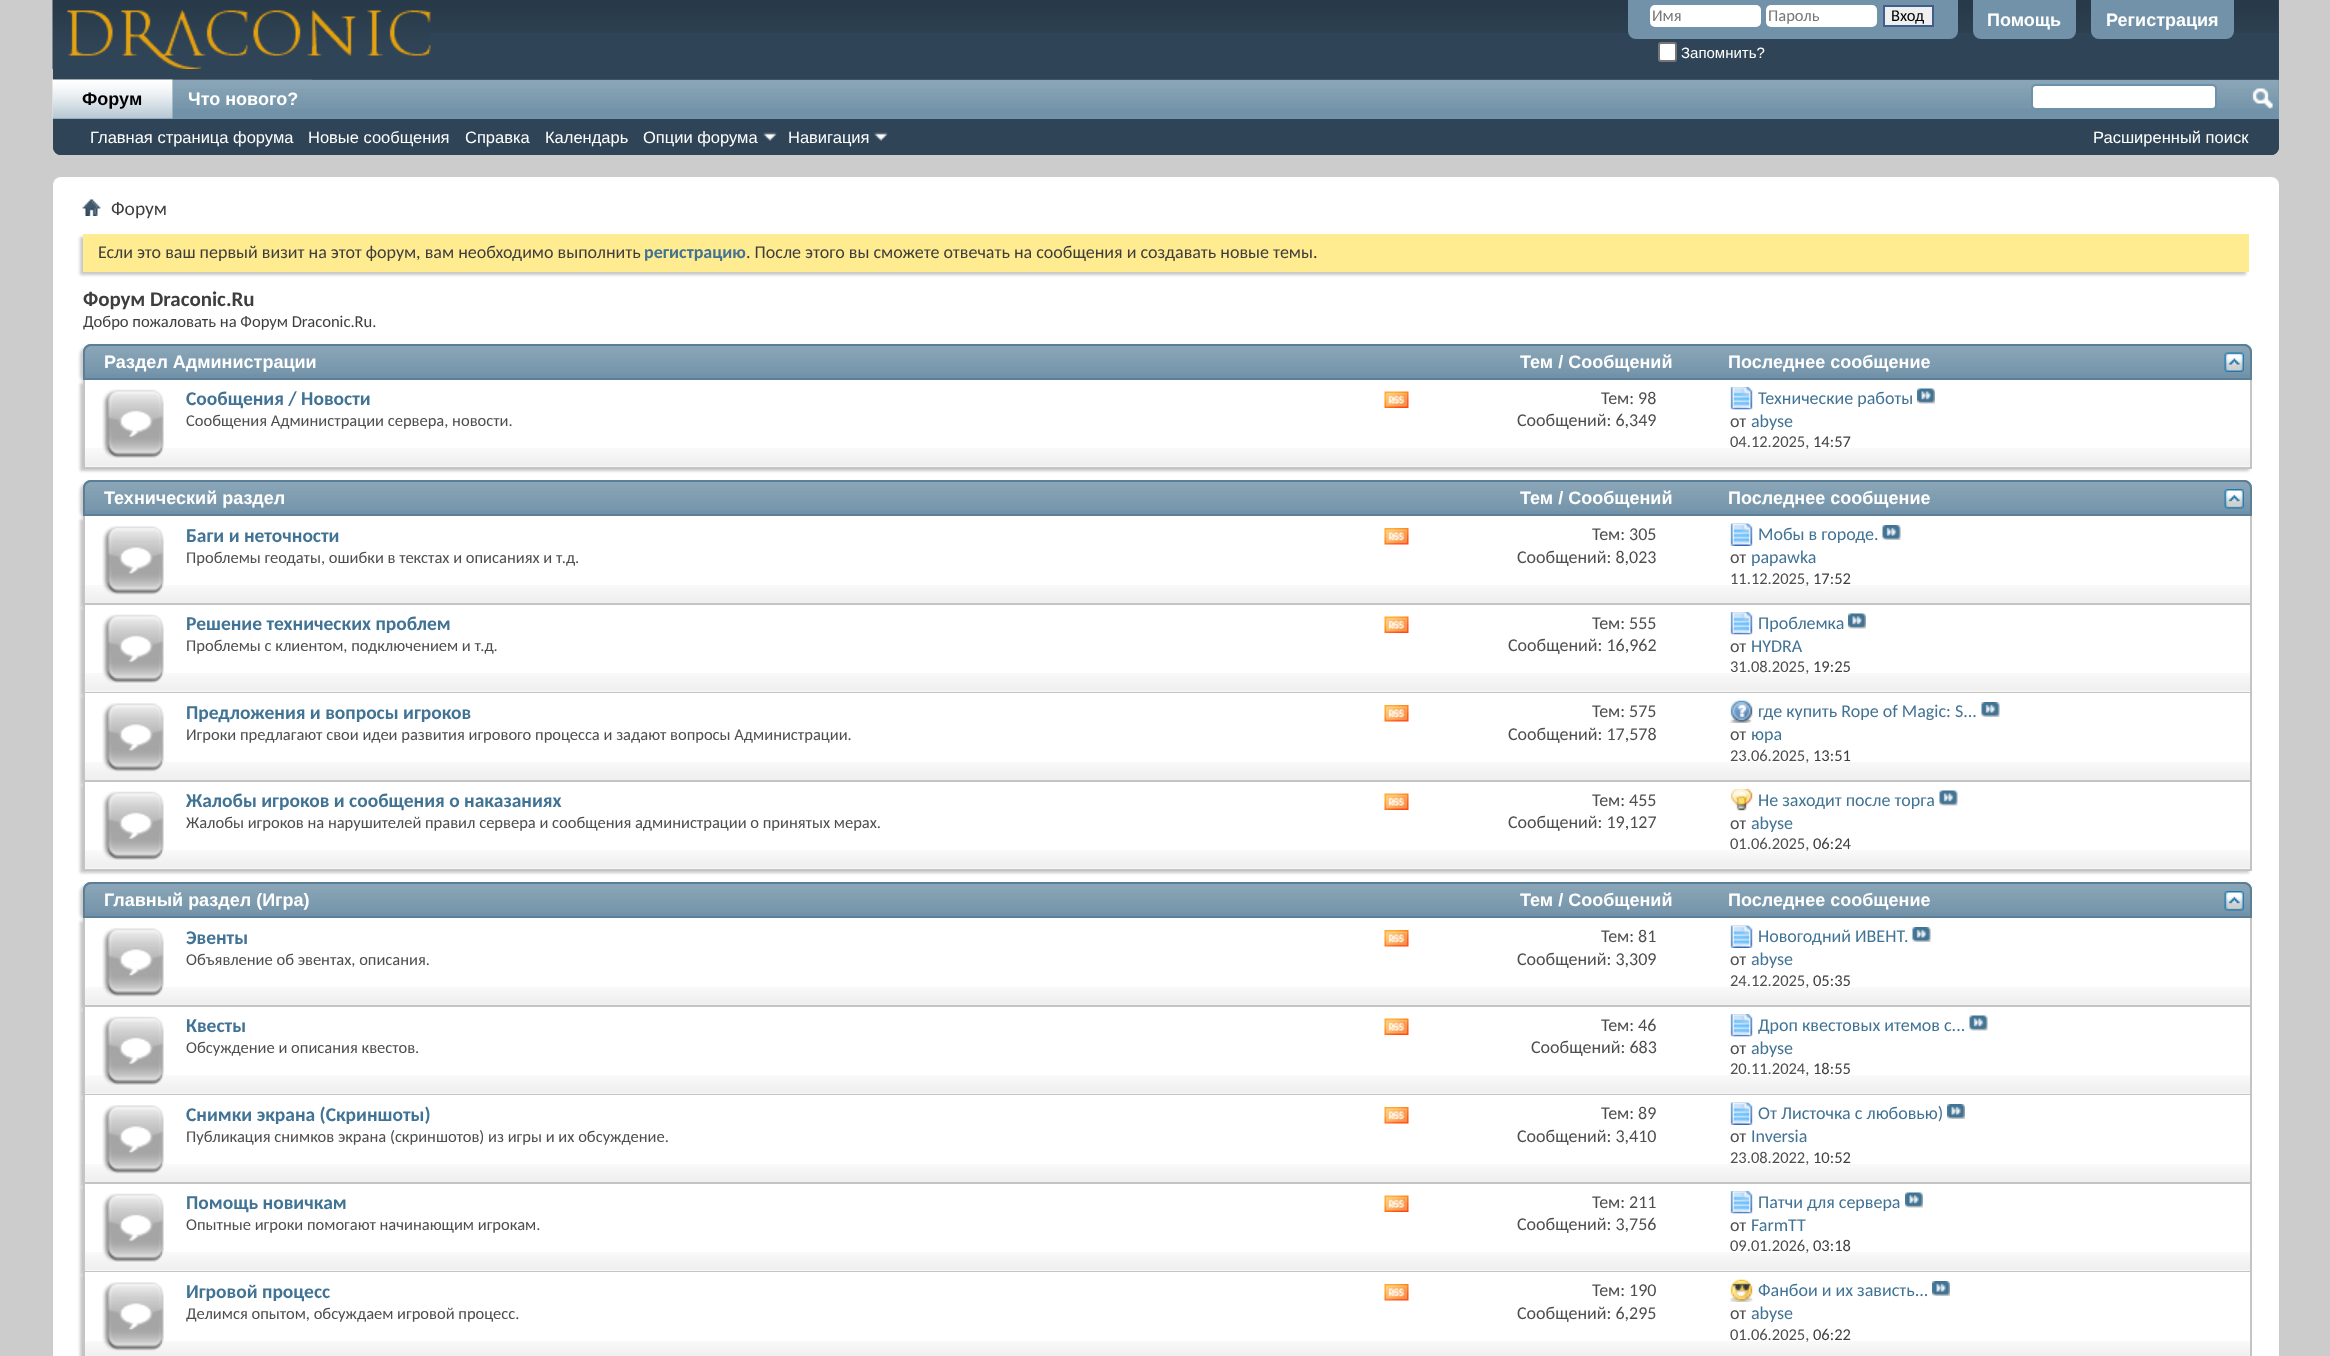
async function draw(canvas) {
  canvas.width = 2330
  canvas.height = 1356
  const ctx = canvas.getContext('2d')
  ctx.miterLimit = 4
  ctx.fontKerning = 'normal'
  async function loadImage(src) {
    const img = new Image()
    img.src = src
    await img.decode()
    return img
  }

  ctx.fillStyle = '#ccc'
  ctx.fillRect(0, 0, 2330, 1356)
  ctx.fillStyle = '#2f4456'
  ctx.beginPath()
  ctx.roundRect(53, 0, 2226, 155, [0, 0, 8, 8])
  ctx.fill()
  ctx.drawImage(await loadImage('image0.png'), 52, 0, 2226, 33)
  ctx.drawImage(await loadImage('image1.png'), 52, 0, 379, 69)
  ctx.fillStyle = '#7192a8'
  ctx.beginPath()
  ctx.roundRect(1628, 0, 330, 39, [0, 0, 8, 8])
  ctx.fill()
  ctx.fillStyle = '#fff'
  ctx.beginPath()
  ctx.roundRect(1650, 5, 111, 22, 5)
  ctx.fill()
  ctx.font = '16.5px Carlito'
  ctx.fillStyle = '#777'
  ctx.fillText('Имя', 1652, 21)
  ctx.fillStyle = '#fff'
  ctx.beginPath()
  ctx.roundRect(1766, 5, 111, 22, 5)
  ctx.fill()
  ctx.fillStyle = '#777'
  ctx.fillText('Пароль', 1768, 21)
  ctx.fillStyle = '#efefef'
  ctx.beginPath()
  ctx.rect(1884, 6, 49, 20)
  ctx.fill()
  ctx.strokeStyle = '#415d8d'
  ctx.lineWidth = 2
  ctx.stroke()
  ctx.fillStyle = '#000'
  ctx.fillText('Вход', 1891, 21)
  ctx.fillStyle = '#fff'
  ctx.beginPath()
  ctx.roundRect(1659, 43, 17, 18, 2)
  ctx.fill()
  ctx.strokeStyle = '#767676'
  ctx.stroke()
  ctx.font = '15px Liberation Sans'
  ctx.fillText('Запомнить?', 1681, 58)
  ctx.fillStyle = '#7192a8'
  ctx.beginPath()
  ctx.roundRect(1973, 0, 103, 39, [0, 0, 8, 8])
  ctx.fill()
  ctx.font = 'bold 18px Liberation Sans'
  ctx.fillStyle = '#fff'
  ctx.fillText('Помощь', 1987, 26)
  ctx.fillStyle = '#7192a8'
  ctx.beginPath()
  ctx.roundRect(2091, 0, 143, 39, [0, 0, 8, 8])
  ctx.fill()
  ctx.fillStyle = '#fff'
  ctx.fillText('Регистрация', 2106, 26)
  ctx.fillStyle = '#2f4456'
  ctx.beginPath()
  ctx.roundRect(53, 80, 2226, 75, [0, 0, 8, 8])
  ctx.fill()
  ctx.fillStyle = '#7192a8'
  ctx.fillRect(312, 80, 1967, 39)
  ctx.drawImage(await loadImage('image2.png'), 52, 79, 2227, 30)
  ctx.fillRect(173, 80, 139, 39)
  ctx.drawImage(await loadImage('image4.png'), 172, 79, 140, 30)
  ctx.fillRect(53, 80, 120, 39)
  ctx.drawImage(await loadImage('image3.png'), 52, 79, 121, 40)
  ctx.fillStyle = '#000'
  ctx.fillText('Форум', 82, 105)
  ctx.fillStyle = '#fff'
  ctx.fillText('Что нового?', 188, 105)
  ctx.font = '16.5px Liberation Sans'
  ctx.fillText('Главная страница форума', 90, 143)
  ctx.fillText('Новые сообщения', 308, 143)
  ctx.fillText('Справка', 465, 143)
  ctx.fillText('Календарь', 545, 143)
  ctx.fillText('Опции форума', 643, 143)
  ctx.drawImage(await loadImage('image5.png'), 763, 132, 14, 9)
  ctx.fillText('Навигация', 788, 143)
  ctx.drawImage(await loadImage('image6.png'), 874, 132, 14, 9)
  ctx.beginPath()
  ctx.roundRect(2032, 85, 184, 24, 4)
  ctx.fill()
  ctx.strokeStyle = '#6b91ab'
  ctx.stroke()
  ctx.drawImage(await loadImage('image7.png'), 2252, 88, 21, 22)
  ctx.fillText('Расширенный поиск', 2093, 143)
  ctx.beginPath()
  ctx.roundRect(53, 177, 2226, 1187, 8)
  ctx.fill()
  ctx.drawImage(await loadImage('image8.png'), 82, 199, 19, 17)
  ctx.font = '19.5px Carlito'
  ctx.fillStyle = '#3e3e3e'
  ctx.fillText('Форум', 111, 215)
  ctx.fillStyle = '#c8c8c8'
  ctx.filter = 'blur(1.5px)'
  ctx.beginPath()
  ctx.rect(80, 237, 2166, 38)
  ctx.fill()
  ctx.filter = 'none'
  ctx.fillStyle = '#ffeb90'
  ctx.fillRect(83, 234, 2166, 38)
  ctx.font = '18px Carlito'
  ctx.fillStyle = '#3e3e3e'
  ctx.fillText('Если это ваш первый визит на этот форум, вам необходимо выполнить', 98, 258)
  ctx.font = 'bold 18px Carlito'
  ctx.fillStyle = '#417394'
  ctx.fillText('регистрацию', 644, 258)
  ctx.font = '18px Carlito'
  ctx.fillStyle = '#3e3e3e'
  ctx.fillText('. После этого вы сможете отвечать на сообщения и создавать новые темы.', 746, 258)
  ctx.font = 'bold 21px Carlito'
  ctx.fillText('Форум Draconic.Ru', 83, 306)
  ctx.font = '16.6px Carlito'
  ctx.fillText('Добро пожаловать на Форум Draconic.Ru.', 83, 327)
  ctx.fillStyle = '#c8c8c8'
  ctx.filter = 'blur(1.5px)'
  ctx.beginPath()
  ctx.roundRect(80, 347, 2169, 36, 8)
  ctx.fill()
  ctx.filter = 'none'
  ctx.fillStyle = '#7192a8'
  ctx.beginPath()
  ctx.roundRect(83, 344, 2169, 36, [8, 8, 0, 0])
  ctx.fill()
  ctx.drawImage(await loadImage('image9.png'), 83, 345, 2169, 29)
  ctx.beginPath()
  ctx.roundRect(84, 345, 2167, 34, [7, 7, 0, 0])
  ctx.strokeStyle = '#5a7f97'
  ctx.stroke()
  ctx.font = 'bold 18px Liberation Sans'
  ctx.fillStyle = '#fff'
  ctx.fillText('Раздел Администрации', 104, 368)
  ctx.fillText('Тем / Сообщений', 1520, 368)
  ctx.fillText('Последнее сообщение', 1728, 368)
  ctx.drawImage(await loadImage('image10.png'), 2224, 352, 20, 20)
  ctx.fillStyle = '#c8c8c8'
  ctx.filter = 'blur(1.5px)'
  ctx.beginPath()
  ctx.rect(80, 383, 2169, 88)
  ctx.fill()
  ctx.filter = 'none'
  ctx.fillStyle = '#fff'
  ctx.fillRect(85, 380, 2165, 87)
  ctx.drawImage(await loadImage('image11.png'), 82, 448, 2168, 19)
  ctx.fillStyle = '#c4c4c4'
  ctx.fillRect(2250, 380, 2, 88)
  ctx.fillRect(83, 467, 2169, 2)
  ctx.fillRect(83, 380, 2, 88)
  ctx.drawImage(await loadImage('image12.png'), 102, 389, 62, 69)
  ctx.font = 'bold 19.5px Carlito'
  ctx.fillStyle = '#417394'
  ctx.fillText('Сообщения / Новости', 186, 405)
  ctx.font = '16.5px Carlito'
  ctx.fillStyle = '#4e4e4e'
  ctx.fillText('Сообщения Администрации сервера, новости.', 186, 426)
  ctx.drawImage(await loadImage('image13.png'), 1384, 391, 25, 17)
  ctx.font = '18px Carlito'
  ctx.fillText('Тем: 98', 1601, 404)
  ctx.fillText('Сообщений: 6,349', 1517, 426)
  ctx.drawImage(await loadImage('image14.png'), 1730, 387, 23, 23)
  ctx.fillStyle = '#417394'
  ctx.fillText('Технические работы', 1758, 404)
  ctx.drawImage(await loadImage('image15.png'), 1917, 388, 18, 16)
  ctx.fillStyle = '#4e4e4e'
  ctx.fillText('от', 1730, 427)
  ctx.fillStyle = '#417394'
  ctx.fillText('abyse', 1751, 427)
  ctx.font = '16.5px Carlito'
  ctx.fillStyle = '#4e4e4e'
  ctx.fillText('04.12.2025,', 1730, 447)
  ctx.fillStyle = '#3e3e3e'
  ctx.fillText('14:57', 1813, 447)
  ctx.fillStyle = '#c8c8c8'
  ctx.filter = 'blur(1.5px)'
  ctx.beginPath()
  ctx.roundRect(80, 483, 2169, 36, 8)
  ctx.fill()
  ctx.filter = 'none'
  ctx.fillStyle = '#7192a8'
  ctx.beginPath()
  ctx.roundRect(83, 480, 2169, 36, [8, 8, 0, 0])
  ctx.fill()
  ctx.drawImage(await loadImage('image16.png'), 83, 481, 2169, 30)
  ctx.beginPath()
  ctx.roundRect(84, 481, 2167, 34, [7, 7, 0, 0])
  ctx.stroke()
  ctx.font = 'bold 18px Liberation Sans'
  ctx.fillStyle = '#fff'
  ctx.fillText('Технический раздел', 104, 504)
  ctx.fillText('Тем / Сообщений', 1520, 504)
  ctx.fillText('Последнее сообщение', 1728, 504)
  ctx.drawImage(await loadImage('image17.png'), 2224, 489, 20, 20)
  ctx.fillStyle = '#c8c8c8'
  ctx.filter = 'blur(1.5px)'
  ctx.beginPath()
  ctx.rect(80, 519, 2169, 89)
  ctx.fill()
  ctx.filter = 'none'
  ctx.fillStyle = '#fff'
  ctx.fillRect(85, 516, 2165, 87)
  ctx.drawImage(await loadImage('image18.png'), 82, 585, 2168, 18)
  ctx.fillStyle = '#c4c4c4'
  ctx.fillRect(2250, 516, 2, 89)
  ctx.fillRect(83, 603, 2169, 2)
  ctx.fillRect(83, 516, 2, 89)
  ctx.drawImage(await loadImage('image19.png'), 102, 526, 62, 69)
  ctx.font = 'bold 19.5px Carlito'
  ctx.fillStyle = '#417394'
  ctx.fillText('Баги и неточности', 186, 542)
  ctx.font = '16.5px Carlito'
  ctx.fillStyle = '#4e4e4e'
  ctx.fillText('Проблемы геодаты, ошибки в текстах и описаниях и т.д.', 186, 563)
  ctx.drawImage(await loadImage('image20.png'), 1384, 528, 25, 17)
  ctx.font = '18px Carlito'
  ctx.fillText('Тем: 305', 1592, 540)
  ctx.fillText('Сообщений: 8,023', 1517, 563)
  ctx.drawImage(await loadImage('image21.png'), 1730, 523, 23, 23)
  ctx.fillStyle = '#417394'
  ctx.fillText('Мобы в городе.', 1758, 540)
  ctx.drawImage(await loadImage('image22.png'), 1882, 525, 19, 15)
  ctx.fillStyle = '#4e4e4e'
  ctx.fillText('от', 1730, 563)
  ctx.fillStyle = '#417394'
  ctx.fillText('papawka', 1751, 563)
  ctx.font = '16.5px Carlito'
  ctx.fillStyle = '#4e4e4e'
  ctx.fillText('11.12.2025,', 1730, 584)
  ctx.fillStyle = '#3e3e3e'
  ctx.fillText('17:52', 1813, 584)
  ctx.fillStyle = '#c8c8c8'
  ctx.filter = 'blur(1.5px)'
  ctx.beginPath()
  ctx.rect(80, 608, 2169, 88)
  ctx.fill()
  ctx.filter = 'none'
  ctx.fillStyle = '#fff'
  ctx.fillRect(85, 605, 2165, 87)
  ctx.drawImage(await loadImage('image23.png'), 82, 673, 2168, 19)
  ctx.fillStyle = '#c4c4c4'
  ctx.fillRect(2250, 605, 2, 88)
  ctx.fillRect(83, 692, 2169, 1)
  ctx.fillRect(83, 605, 2, 88)
  ctx.drawImage(await loadImage('image24.png'), 102, 614, 62, 69)
  ctx.font = 'bold 19.5px Carlito'
  ctx.fillStyle = '#417394'
  ctx.fillText('Решение технических проблем', 186, 630)
  ctx.font = '16.5px Carlito'
  ctx.fillStyle = '#4e4e4e'
  ctx.fillText('Проблемы с клиентом, подключением и т.д.', 186, 651)
  ctx.drawImage(await loadImage('image13.png'), 1384, 616, 25, 17)
  ctx.font = '18px Carlito'
  ctx.fillText('Тем: 555', 1592, 629)
  ctx.fillText('Сообщений: 16,962', 1508, 651)
  ctx.drawImage(await loadImage('image14.png'), 1730, 612, 23, 23)
  ctx.fillStyle = '#417394'
  ctx.fillText('Проблемка', 1758, 629)
  ctx.drawImage(await loadImage('image15.png'), 1848, 613, 18, 16)
  ctx.fillStyle = '#4e4e4e'
  ctx.fillText('от', 1730, 652)
  ctx.fillStyle = '#417394'
  ctx.fillText('HYDRA', 1751, 652)
  ctx.font = '16.5px Carlito'
  ctx.fillStyle = '#4e4e4e'
  ctx.fillText('31.08.2025,', 1730, 672)
  ctx.fillStyle = '#3e3e3e'
  ctx.fillText('19:25', 1813, 672)
  ctx.fillStyle = '#c8c8c8'
  ctx.filter = 'blur(1.5px)'
  ctx.beginPath()
  ctx.rect(80, 696, 2169, 89)
  ctx.fill()
  ctx.filter = 'none'
  ctx.fillStyle = '#fff'
  ctx.fillRect(85, 693, 2165, 87)
  ctx.drawImage(await loadImage('image25.png'), 82, 762, 2168, 18)
  ctx.fillStyle = '#c4c4c4'
  ctx.fillRect(2250, 693, 2, 89)
  ctx.fillRect(83, 780, 2169, 2)
  ctx.fillRect(83, 693, 2, 89)
  ctx.drawImage(await loadImage('image26.png'), 102, 703, 62, 69)
  ctx.font = 'bold 19.5px Carlito'
  ctx.fillStyle = '#417394'
  ctx.fillText('Предложения и вопросы игроков', 186, 719)
  ctx.font = '16.5px Carlito'
  ctx.fillStyle = '#4e4e4e'
  ctx.fillText('Игроки предлагают свои идеи развития игрового процесса и задают вопросы Администрации.', 186, 740)
  ctx.drawImage(await loadImage('image20.png'), 1384, 705, 25, 17)
  ctx.font = '18px Carlito'
  ctx.fillText('Тем: 575', 1592, 717)
  ctx.fillText('Сообщений: 17,578', 1508, 740)
  ctx.drawImage(await loadImage('image27.png'), 1730, 700, 23, 23)
  ctx.fillStyle = '#417394'
  ctx.fillText('где купить Rope of Magic: S...', 1758, 717)
  ctx.drawImage(await loadImage('image28.png'), 1981, 702, 19, 15)
  ctx.fillStyle = '#4e4e4e'
  ctx.fillText('от', 1730, 740)
  ctx.fillStyle = '#417394'
  ctx.fillText('юра', 1751, 740)
  ctx.font = '16.5px Carlito'
  ctx.fillStyle = '#4e4e4e'
  ctx.fillText('23.06.2025,', 1730, 761)
  ctx.fillStyle = '#3e3e3e'
  ctx.fillText('13:51', 1813, 761)
  ctx.fillStyle = '#c8c8c8'
  ctx.filter = 'blur(1.5px)'
  ctx.beginPath()
  ctx.rect(80, 785, 2169, 88)
  ctx.fill()
  ctx.filter = 'none'
  ctx.fillStyle = '#fff'
  ctx.fillRect(85, 782, 2165, 87)
  ctx.drawImage(await loadImage('image23.png'), 82, 850, 2168, 19)
  ctx.fillStyle = '#c4c4c4'
  ctx.fillRect(2250, 782, 2, 88)
  ctx.fillRect(83, 869, 2169, 2)
  ctx.fillRect(83, 782, 2, 88)
  ctx.drawImage(await loadImage('image24.png'), 102, 791, 62, 69)
  ctx.font = 'bold 19.5px Carlito'
  ctx.fillStyle = '#417394'
  ctx.fillText('Жалобы игроков и сообщения о наказаниях', 186, 807)
  ctx.font = '16.5px Carlito'
  ctx.fillStyle = '#4e4e4e'
  ctx.fillText('Жалобы игроков на нарушителей правил сервера и сообщения администрации о принятых мерах.', 186, 828)
  ctx.drawImage(await loadImage('image13.png'), 1384, 793, 25, 17)
  ctx.font = '18px Carlito'
  ctx.fillText('Тем: 455', 1592, 806)
  ctx.fillText('Сообщений: 19,127', 1508, 828)
  ctx.drawImage(await loadImage('image29.png'), 1730, 789, 23, 22)
  ctx.fillStyle = '#417394'
  ctx.fillText('Не заходит после торга', 1758, 806)
  ctx.drawImage(await loadImage('image30.png'), 1939, 790, 19, 16)
  ctx.fillStyle = '#4e4e4e'
  ctx.fillText('от', 1730, 829)
  ctx.fillStyle = '#417394'
  ctx.fillText('abyse', 1751, 829)
  ctx.font = '16.5px Carlito'
  ctx.fillStyle = '#4e4e4e'
  ctx.fillText('01.06.2025,', 1730, 849)
  ctx.fillStyle = '#3e3e3e'
  ctx.fillText('06:24', 1813, 849)
  ctx.fillStyle = '#c8c8c8'
  ctx.filter = 'blur(1.5px)'
  ctx.beginPath()
  ctx.roundRect(80, 885, 2169, 36, 8)
  ctx.fill()
  ctx.filter = 'none'
  ctx.fillStyle = '#7192a8'
  ctx.beginPath()
  ctx.roundRect(83, 882, 2169, 36, [8, 8, 0, 0])
  ctx.fill()
  ctx.drawImage(await loadImage('image16.png'), 83, 883, 2169, 30)
  ctx.beginPath()
  ctx.roundRect(84, 883, 2167, 34, [7, 7, 0, 0])
  ctx.stroke()
  ctx.font = 'bold 18px Liberation Sans'
  ctx.fillStyle = '#fff'
  ctx.fillText('Главный раздел (Игра)', 104, 906)
  ctx.fillText('Тем / Сообщений', 1520, 906)
  ctx.fillText('Последнее сообщение', 1728, 906)
  ctx.drawImage(await loadImage('image17.png'), 2224, 891, 20, 20)
  ctx.fillStyle = '#c8c8c8'
  ctx.filter = 'blur(1.5px)'
  ctx.beginPath()
  ctx.rect(80, 921, 2169, 89)
  ctx.fill()
  ctx.filter = 'none'
  ctx.fillStyle = '#fff'
  ctx.fillRect(85, 918, 2165, 87)
  ctx.drawImage(await loadImage('image31.png'), 82, 987, 2168, 18)
  ctx.fillStyle = '#c4c4c4'
  ctx.fillRect(2250, 918, 2, 89)
  ctx.fillRect(83, 1005, 2169, 2)
  ctx.fillRect(83, 918, 2, 89)
  ctx.drawImage(await loadImage('image32.png'), 102, 928, 62, 69)
  ctx.font = 'bold 19.5px Carlito'
  ctx.fillStyle = '#417394'
  ctx.fillText('Эвенты', 186, 944)
  ctx.font = '16.5px Carlito'
  ctx.fillStyle = '#4e4e4e'
  ctx.fillText('Объявление об эвентах, описания.', 186, 965)
  ctx.drawImage(await loadImage('image20.png'), 1384, 930, 25, 17)
  ctx.font = '18px Carlito'
  ctx.fillText('Тем: 81', 1601, 942)
  ctx.fillText('Сообщений: 3,309', 1517, 965)
  ctx.drawImage(await loadImage('image21.png'), 1730, 925, 23, 23)
  ctx.fillStyle = '#417394'
  ctx.fillText('Новогодний ИВЕНТ.', 1758, 942)
  ctx.drawImage(await loadImage('image22.png'), 1912, 927, 19, 15)
  ctx.fillStyle = '#4e4e4e'
  ctx.fillText('от', 1730, 965)
  ctx.fillStyle = '#417394'
  ctx.fillText('abyse', 1751, 965)
  ctx.font = '16.5px Carlito'
  ctx.fillStyle = '#4e4e4e'
  ctx.fillText('24.12.2025,', 1730, 986)
  ctx.fillStyle = '#3e3e3e'
  ctx.fillText('05:35', 1813, 986)
  ctx.fillStyle = '#c8c8c8'
  ctx.filter = 'blur(1.5px)'
  ctx.beginPath()
  ctx.rect(80, 1010, 2169, 88)
  ctx.fill()
  ctx.filter = 'none'
  ctx.fillStyle = '#fff'
  ctx.fillRect(85, 1007, 2165, 87)
  ctx.drawImage(await loadImage('image23.png'), 82, 1075, 2168, 19)
  ctx.fillStyle = '#c4c4c4'
  ctx.fillRect(2250, 1007, 2, 88)
  ctx.fillRect(83, 1094, 2169, 1)
  ctx.fillRect(83, 1007, 2, 88)
  ctx.drawImage(await loadImage('image24.png'), 102, 1016, 62, 69)
  ctx.font = 'bold 19.5px Carlito'
  ctx.fillStyle = '#417394'
  ctx.fillText('Квесты', 186, 1032)
  ctx.font = '16.5px Carlito'
  ctx.fillStyle = '#4e4e4e'
  ctx.fillText('Обсуждение и описания квестов.', 186, 1053)
  ctx.drawImage(await loadImage('image13.png'), 1384, 1018, 25, 17)
  ctx.font = '18px Carlito'
  ctx.fillText('Тем: 46', 1601, 1031)
  ctx.fillText('Сообщений: 683', 1531, 1053)
  ctx.drawImage(await loadImage('image14.png'), 1730, 1014, 23, 23)
  ctx.fillStyle = '#417394'
  ctx.fillText('Дроп квестовых итемов с...', 1758, 1031)
  ctx.drawImage(await loadImage('image33.png'), 1969, 1015, 19, 16)
  ctx.fillStyle = '#4e4e4e'
  ctx.fillText('от', 1730, 1054)
  ctx.fillStyle = '#417394'
  ctx.fillText('abyse', 1751, 1054)
  ctx.font = '16.5px Carlito'
  ctx.fillStyle = '#4e4e4e'
  ctx.fillText('20.11.2024,', 1730, 1074)
  ctx.fillStyle = '#3e3e3e'
  ctx.fillText('18:55', 1813, 1074)
  ctx.fillStyle = '#c8c8c8'
  ctx.filter = 'blur(1.5px)'
  ctx.beginPath()
  ctx.rect(80, 1098, 2169, 89)
  ctx.fill()
  ctx.filter = 'none'
  ctx.fillStyle = '#fff'
  ctx.fillRect(85, 1095, 2165, 87)
  ctx.drawImage(await loadImage('image34.png'), 82, 1164, 2168, 18)
  ctx.fillStyle = '#c4c4c4'
  ctx.fillRect(2250, 1095, 2, 89)
  ctx.fillRect(83, 1182, 2169, 2)
  ctx.fillRect(83, 1095, 2, 89)
  ctx.drawImage(await loadImage('image19.png'), 102, 1105, 62, 69)
  ctx.font = 'bold 19.5px Carlito'
  ctx.fillStyle = '#417394'
  ctx.fillText('Снимки экрана (Cкриншоты)', 186, 1121)
  ctx.font = '16.5px Carlito'
  ctx.fillStyle = '#4e4e4e'
  ctx.fillText('Публикация снимков экрана (скриншотов) из игры и их обсуждение.', 186, 1142)
  ctx.drawImage(await loadImage('image20.png'), 1384, 1107, 25, 17)
  ctx.font = '18px Carlito'
  ctx.fillText('Тем: 89', 1601, 1119)
  ctx.fillText('Сообщений: 3,410', 1517, 1142)
  ctx.drawImage(await loadImage('image21.png'), 1730, 1102, 23, 23)
  ctx.fillStyle = '#417394'
  ctx.fillText('От Листочка с любовью)', 1758, 1119)
  ctx.drawImage(await loadImage('image35.png'), 1947, 1104, 18, 15)
  ctx.fillStyle = '#4e4e4e'
  ctx.fillText('от', 1730, 1142)
  ctx.fillStyle = '#417394'
  ctx.fillText('Inversia', 1751, 1142)
  ctx.font = '16.5px Carlito'
  ctx.fillStyle = '#4e4e4e'
  ctx.fillText('23.08.2022,', 1730, 1163)
  ctx.fillStyle = '#3e3e3e'
  ctx.fillText('10:52', 1813, 1163)
  ctx.fillStyle = '#c8c8c8'
  ctx.filter = 'blur(1.5px)'
  ctx.beginPath()
  ctx.rect(80, 1187, 2169, 88)
  ctx.fill()
  ctx.filter = 'none'
  ctx.fillStyle = '#fff'
  ctx.fillRect(85, 1184, 2165, 87)
  ctx.drawImage(await loadImage('image23.png'), 82, 1252, 2168, 19)
  ctx.fillStyle = '#c4c4c4'
  ctx.fillRect(2250, 1184, 2, 88)
  ctx.fillRect(83, 1271, 2169, 1)
  ctx.fillRect(83, 1184, 2, 88)
  ctx.drawImage(await loadImage('image24.png'), 102, 1193, 62, 69)
  ctx.font = 'bold 19.5px Carlito'
  ctx.fillStyle = '#417394'
  ctx.fillText('Помощь новичкам', 186, 1209)
  ctx.font = '16.5px Carlito'
  ctx.fillStyle = '#4e4e4e'
  ctx.fillText('Опытные игроки помогают начинающим игрокам.', 186, 1230)
  ctx.drawImage(await loadImage('image13.png'), 1384, 1195, 25, 17)
  ctx.font = '18px Carlito'
  ctx.fillText('Тем: 211', 1592, 1208)
  ctx.fillText('Сообщений: 3,756', 1517, 1230)
  ctx.drawImage(await loadImage('image14.png'), 1730, 1191, 23, 23)
  ctx.fillStyle = '#417394'
  ctx.fillText('Патчи для сервера', 1758, 1208)
  ctx.drawImage(await loadImage('image15.png'), 1905, 1192, 18, 16)
  ctx.fillStyle = '#4e4e4e'
  ctx.fillText('от', 1730, 1231)
  ctx.fillStyle = '#417394'
  ctx.fillText('FarmTT', 1751, 1231)
  ctx.font = '16.5px Carlito'
  ctx.fillStyle = '#4e4e4e'
  ctx.fillText('09.01.2026,', 1730, 1251)
  ctx.fillStyle = '#3e3e3e'
  ctx.fillText('03:18', 1813, 1251)
  ctx.fillStyle = '#c8c8c8'
  ctx.filter = 'blur(1.5px)'
  ctx.beginPath()
  ctx.rect(80, 1275, 2169, 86)
  ctx.fill()
  ctx.filter = 'none'
  ctx.fillStyle = '#fff'
  ctx.fillRect(85, 1272, 2165, 84)
  ctx.drawImage(await loadImage('image36.png'), 82, 1341, 2168, 15)
  ctx.fillStyle = '#c4c4c4'
  ctx.fillRect(2250, 1272, 2, 84)
  ctx.fillRect(83, 1272, 2, 84)
  ctx.drawImage(await loadImage('image37.png'), 102, 1282, 62, 69)
  ctx.font = 'bold 19.5px Carlito'
  ctx.fillStyle = '#417394'
  ctx.fillText('Игровой процесс', 186, 1298)
  ctx.font = '16.5px Carlito'
  ctx.fillStyle = '#4e4e4e'
  ctx.fillText('Делимся опытом, обсуждаем игровой процесс.', 186, 1319)
  ctx.drawImage(await loadImage('image20.png'), 1384, 1284, 25, 17)
  ctx.font = '18px Carlito'
  ctx.fillText('Тем: 190', 1592, 1296)
  ctx.fillText('Сообщений: 6,295', 1517, 1319)
  ctx.drawImage(await loadImage('image38.png'), 1730, 1279, 23, 23)
  ctx.fillStyle = '#417394'
  ctx.fillText('Фанбои и их зависть...', 1758, 1296)
  ctx.drawImage(await loadImage('image35.png'), 1932, 1281, 18, 15)
  ctx.fillStyle = '#4e4e4e'
  ctx.fillText('от', 1730, 1319)
  ctx.fillStyle = '#417394'
  ctx.fillText('abyse', 1751, 1319)
  ctx.font = '16.5px Carlito'
  ctx.fillStyle = '#4e4e4e'
  ctx.fillText('01.06.2025,', 1730, 1340)
  ctx.fillStyle = '#3e3e3e'
  ctx.fillText('06:22', 1813, 1340)
}

draw(document.querySelector('canvas'))
